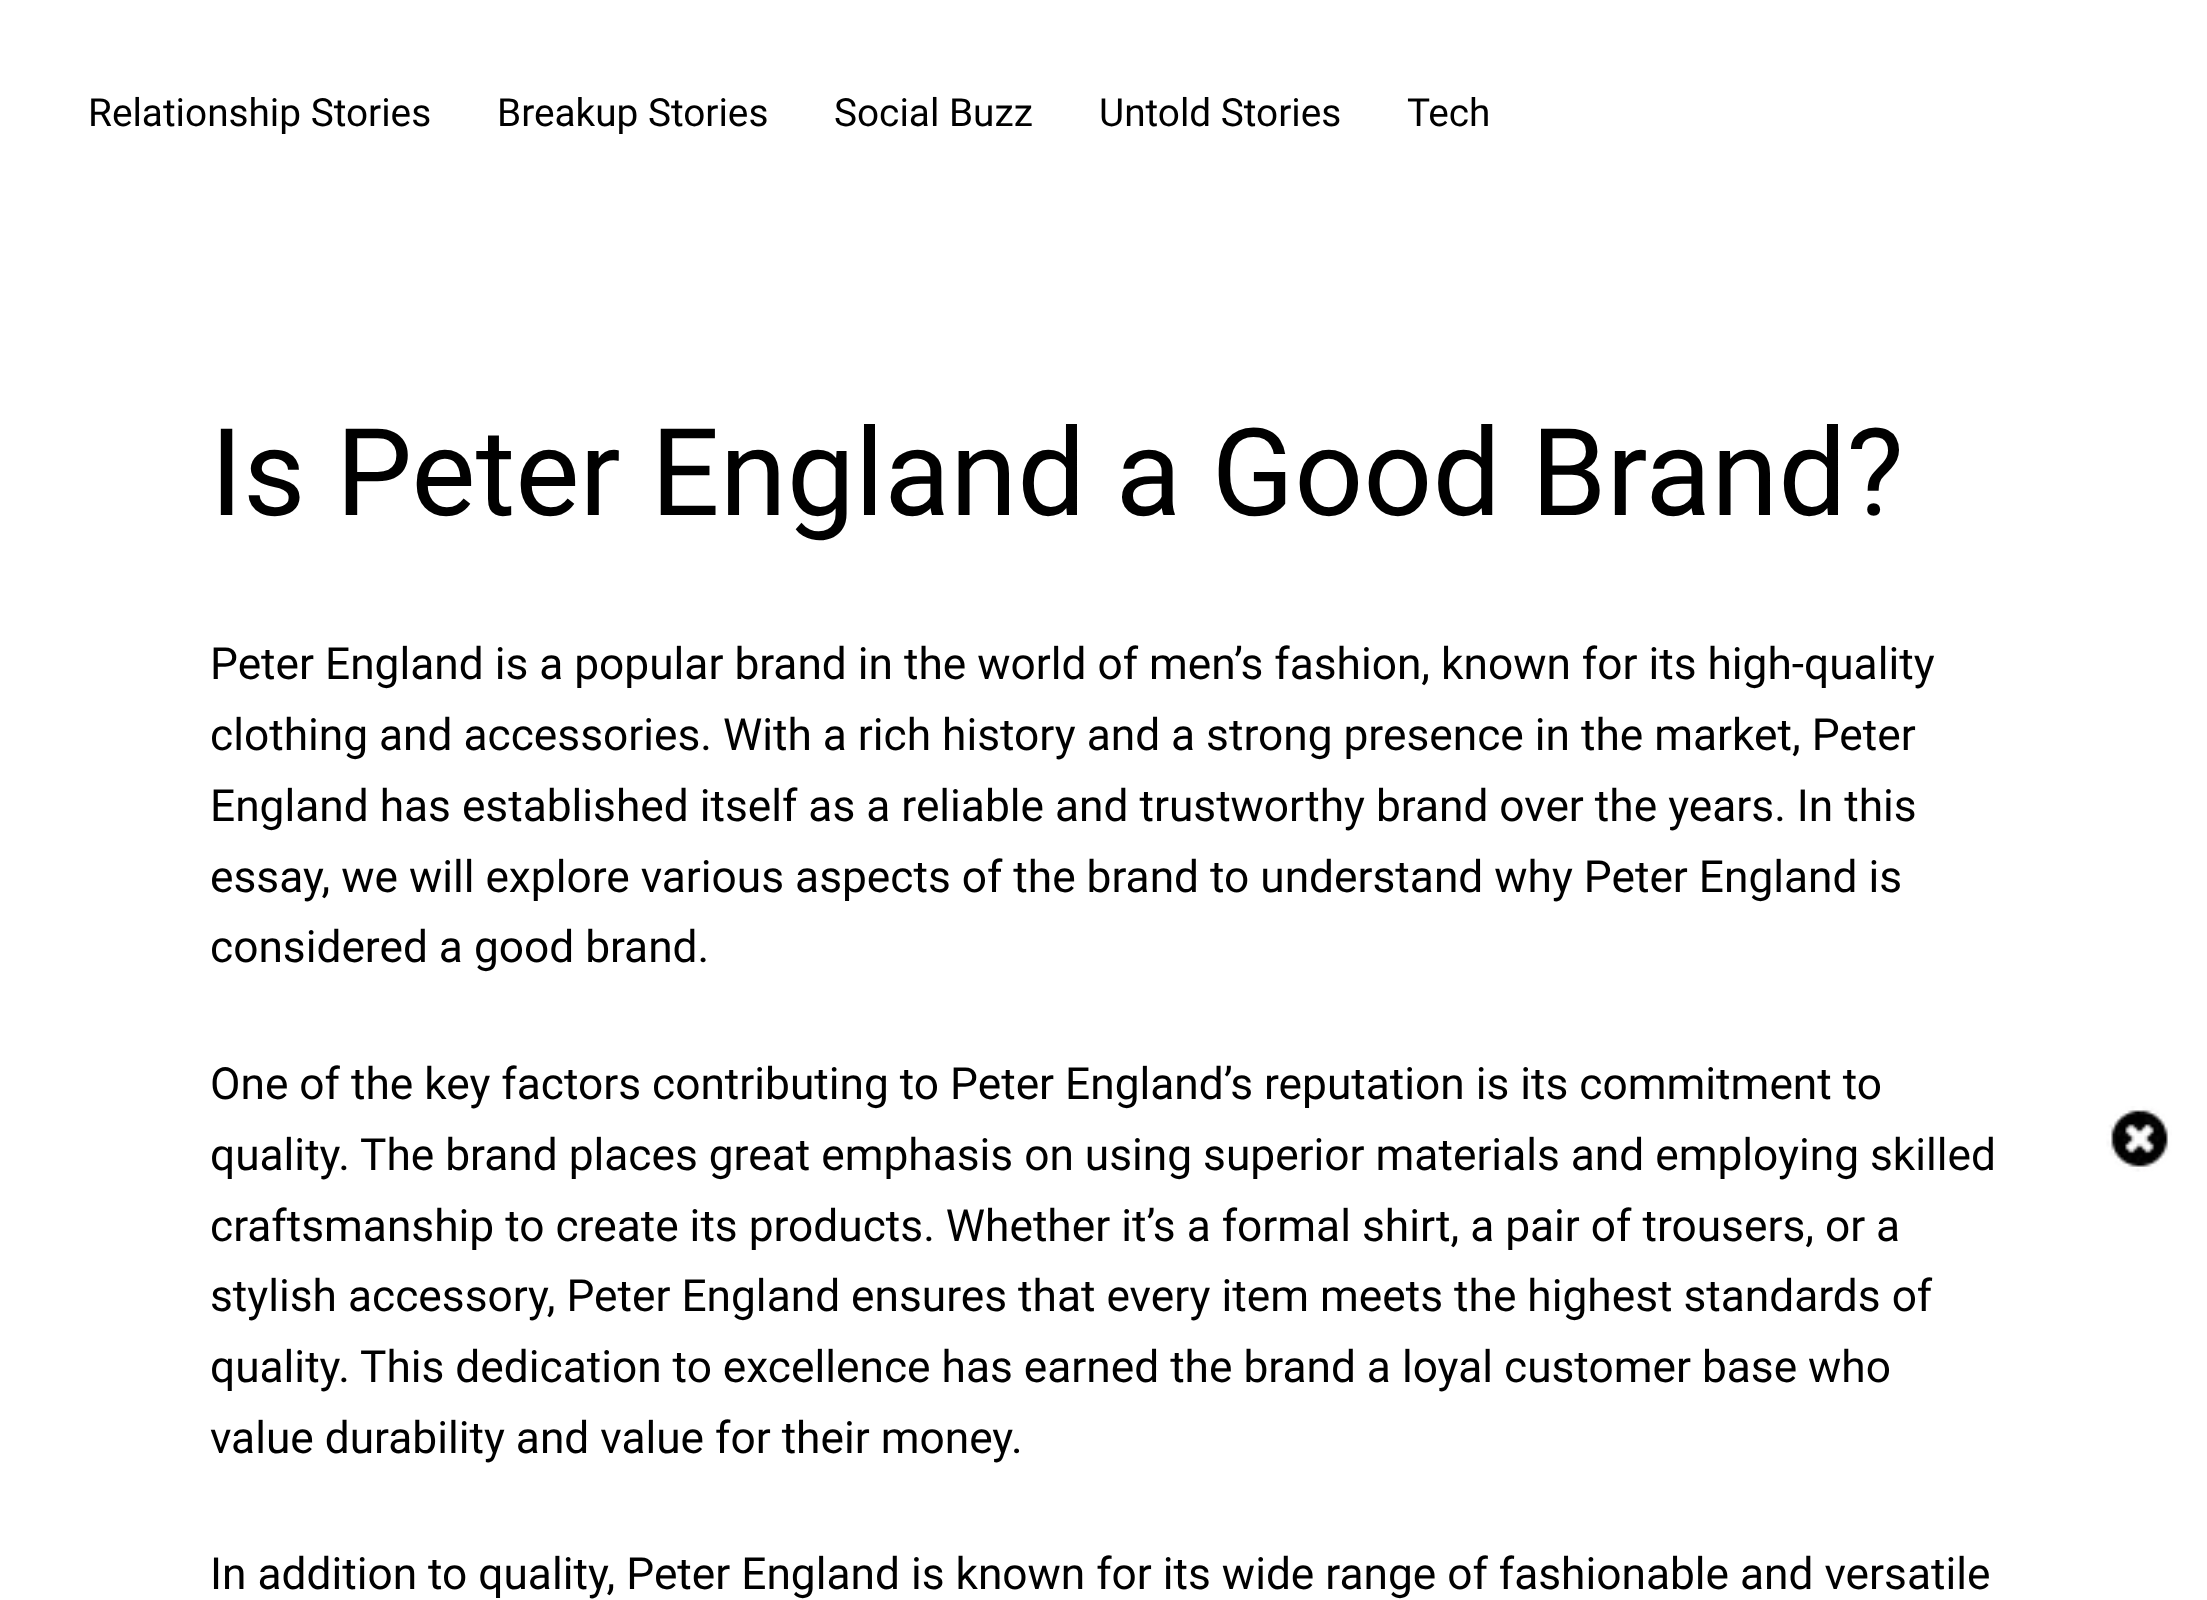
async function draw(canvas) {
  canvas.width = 2207
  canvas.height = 1600
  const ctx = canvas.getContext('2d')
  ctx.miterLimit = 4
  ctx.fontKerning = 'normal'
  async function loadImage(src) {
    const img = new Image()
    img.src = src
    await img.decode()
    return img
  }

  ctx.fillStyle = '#fff'
  ctx.fillRect(0, 0, 2207, 1600)
  ctx.font = '38.75px Roboto'
  ctx.fillStyle = '#000'
  ctx.fillText('Relationship Stories', 88, 126)
  ctx.fillText('Breakup Stories', 497, 126)
  ctx.fillText('Social Buzz', 834, 126)
  ctx.fillText('Untold Stories', 1099, 126)
  ctx.fillText('Tech', 1407, 126)
  ctx.font = '121.25px Roboto'
  ctx.fillText('Is Peter England a Good Brand?', 210, 515)
  ctx.font = '44.25px Roboto'
  ctx.fillText('Peter England is a popular brand in the world of men’s fashion, known for its high-quality', 210, 679)
  ctx.fillText('clothing and accessories. With a rich history and a strong presence in the market, Peter', 210, 750)
  ctx.fillText('England has established itself as a reliable and trustworthy brand over the years. In this', 210, 821)
  ctx.fillText('essay, we will explore various aspects of the brand to understand why Peter England is', 210, 892)
  ctx.fillText('considered a good brand.', 210, 962)
  ctx.fillText('One of the key factors contributing to Peter England’s reputation is its commitment to', 210, 1099)
  ctx.fillText('quality. The brand places great emphasis on using superior materials and employing skilled', 210, 1170)
  ctx.fillText('craftsmanship to create its products. Whether it’s a formal shirt, a pair of trousers, or a', 210, 1241)
  ctx.fillText('stylish accessory, Peter England ensures that every item meets the highest standards of', 210, 1311)
  ctx.fillText('quality. This dedication to excellence has earned the brand a loyal customer base who', 210, 1382)
  ctx.fillText('value durability and value for their money.', 210, 1453)
  ctx.fillText('In addition to quality, Peter England is known for its wide range of fashionable and versatile', 210, 1589)
  ctx.drawImage(await loadImage('image0.png'), 2106, 1106, 66, 66)
}

draw(document.querySelector('canvas'))
